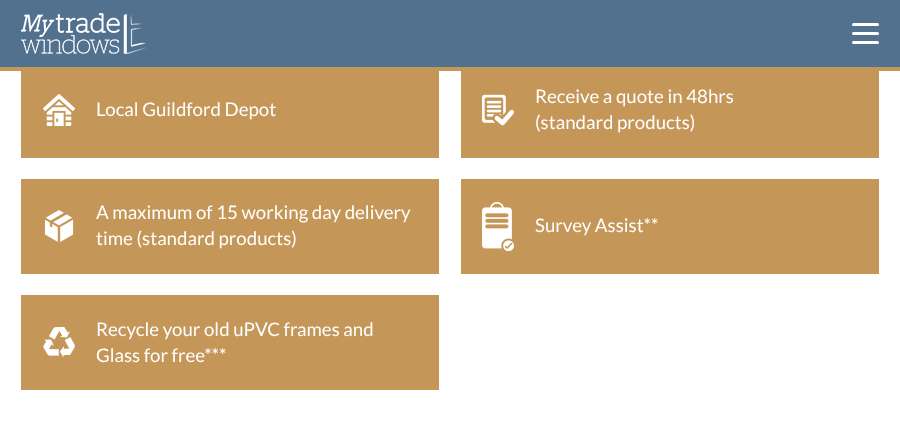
async function draw(canvas) {
  canvas.width = 900
  canvas.height = 421
  const ctx = canvas.getContext('2d')
  ctx.miterLimit = 4
  ctx.fontKerning = 'normal'
  async function loadImage(src) {
    const img = new Image()
    img.src = src
    await img.decode()
    return img
  }

  ctx.fillStyle = '#fff'
  ctx.fillRect(0, 0, 900, 421)
  ctx.fillStyle = '#c49658'
  ctx.fillRect(0, 67, 900, 4)
  ctx.fillStyle = '#52718e'
  ctx.fillRect(0, 0, 900, 67)
  ctx.drawImage(await loadImage('image0.png'), 21, 13, 126, 41)
  ctx.fillStyle = '#fff'
  ctx.beginPath()
  ctx.roundRect(852, 41, 27, 3, 1.5)
  ctx.fill()
  ctx.beginPath()
  ctx.roundRect(852, 23, 27, 3, 1.5)
  ctx.fill()
  ctx.beginPath()
  ctx.roundRect(852, 32, 27, 3, 1.5)
  ctx.fill()
  ctx.fillStyle = '#c49658'
  ctx.fillRect(21, 71, 418, 87)
  ctx.drawImage(await loadImage('image1.png'), 43, 94, 32, 32)
  ctx.font = '18.7px Lato'
  ctx.fillStyle = '#fff'
  ctx.fillText('Local Guildford Depot', 96, 116)
  ctx.fillStyle = '#c49658'
  ctx.fillRect(461, 71, 418, 87)
  ctx.drawImage(await loadImage('image2.png'), 482, 94, 32, 32)
  ctx.fillStyle = '#fff'
  ctx.fillText('Receive a quote in 48hrs', 535, 103)
  ctx.fillText('(standard products)', 535, 129)
  ctx.fillStyle = '#c49658'
  ctx.fillRect(21, 179, 418, 95)
  ctx.drawImage(await loadImage('image3.png'), 44, 210, 30, 32)
  ctx.fillStyle = '#fff'
  ctx.fillText('A maximum of 15 working day delivery', 96, 219)
  ctx.fillText('time (standard products)', 96, 245)
  ctx.fillStyle = '#c49658'
  ctx.fillRect(461, 179, 418, 95)
  ctx.drawImage(await loadImage('image4.png'), 482, 202, 32, 49)
  ctx.fillStyle = '#fff'
  ctx.fillText('Survey Assist**', 535, 232)
  ctx.fillStyle = '#c49658'
  ctx.fillRect(21, 295, 418, 95)
  ctx.drawImage(await loadImage('image5.png'), 43, 327, 32, 31)
  ctx.fillStyle = '#fff'
  ctx.fillText('Recycle your old uPVC frames and', 96, 336)
  ctx.fillText('Glass for free***', 96, 362)
}

draw(document.querySelector('canvas'))
